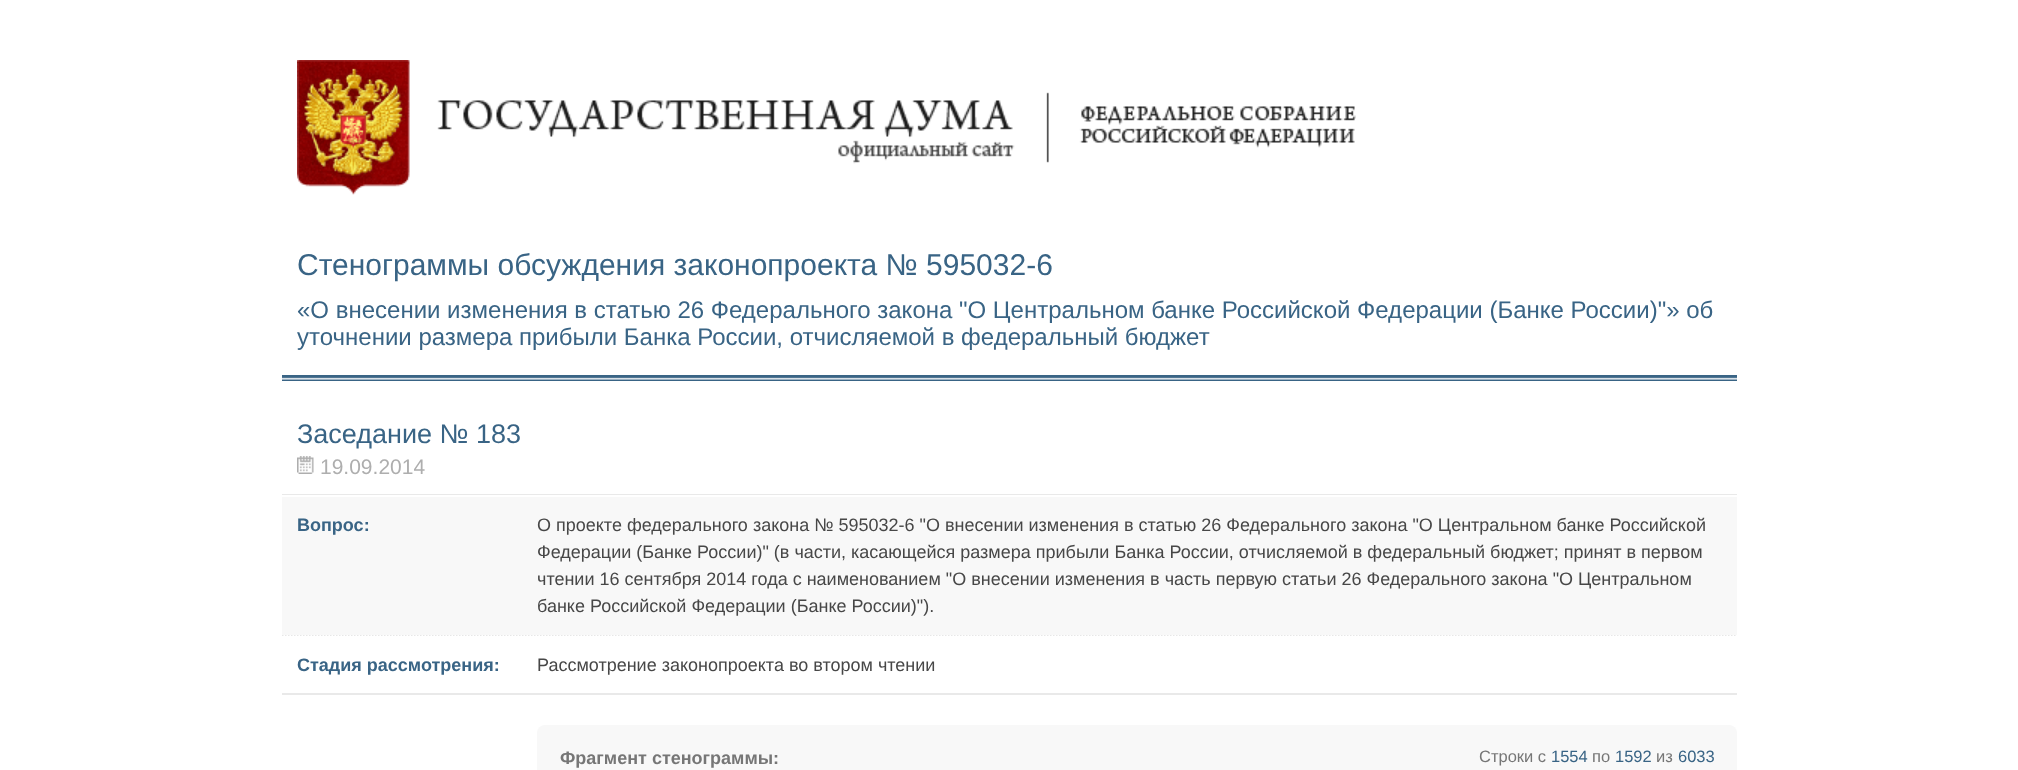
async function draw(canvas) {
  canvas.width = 2018
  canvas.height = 770
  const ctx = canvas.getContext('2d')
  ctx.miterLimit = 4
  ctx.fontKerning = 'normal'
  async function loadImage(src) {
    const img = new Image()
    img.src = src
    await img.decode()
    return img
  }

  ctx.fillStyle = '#fff'
  ctx.fillRect(0, 0, 2018, 770)
  ctx.drawImage(await loadImage('image0.png'), 297, 60, 1059, 135)
  ctx.drawImage(await loadImage('image1.png'), 282, 375, 1455, 6)
  ctx.font = '30px Liberation Sans'
  ctx.fillStyle = '#396485'
  ctx.fillText('Стенограммы обсуждения законопроекта № 595032-6', 297, 275)
  ctx.font = '24px Liberation Sans'
  ctx.fillText('«О внесении изменения в статью 26 Федерального закона "О Центральном банке Российской Федерации (Банке России)"» об', 297, 318)
  ctx.fillText('уточнении размера прибыли Банка России, отчисляемой в федеральный бюджет', 297, 345)
  ctx.font = '27px Liberation Sans'
  ctx.fillText('Заседание № 183', 297, 443)
  ctx.drawImage(await loadImage('image2.png'), 297, 456, 17, 18)
  ctx.font = '21px Liberation Sans'
  ctx.fillStyle = '#aeaeae'
  ctx.fillText('19.09.2014', 320, 474)
  ctx.fillStyle = '#e9e9e9'
  ctx.fillRect(282, 494, 1455, 1)
  ctx.beginPath()
  ctx.moveTo(282, 635)
  ctx.lineTo(1737, 635)
  ctx.strokeStyle = '#dfdfdf'
  ctx.lineWidth = 1.5
  ctx.setLineDash([1.5, 1.5])
  ctx.stroke()
  ctx.fillStyle = '#f8f8f8'
  ctx.fillRect(282, 497, 1455, 138)
  ctx.font = 'bold 18px Liberation Sans'
  ctx.fillStyle = '#396485'
  ctx.fillText('Вопрос:', 297, 531)
  ctx.font = '18px Liberation Sans'
  ctx.fillStyle = '#474747'
  ctx.fillText('О проекте федерального закона № 595032-6 "О внесении изменения в статью 26 Федерального закона "О Центральном банке Российской', 537, 531)
  ctx.fillText('Федерации (Банке России)" (в части, касающейся размера прибыли Банка России, отчисляемой в федеральный бюджет; принят в первом', 537, 558)
  ctx.fillText('чтении 16 сентября 2014 года с наименованием "О внесении изменения в часть первую статьи 26 Федерального закона "О Центральном', 537, 585)
  ctx.fillText('банке Российской Федерации (Банке России)").', 537, 612)
  ctx.fillStyle = '#e9e9e9'
  ctx.fillRect(282, 693, 1455, 2)
  ctx.font = 'bold 18px Liberation Sans'
  ctx.fillStyle = '#396485'
  ctx.fillText('Стадия рассмотрения:', 297, 671)
  ctx.font = '18px Liberation Sans'
  ctx.fillStyle = '#474747'
  ctx.fillText('Рассмотрение законопроекта во втором чтении', 537, 671)
  ctx.fillStyle = '#f8f8f8'
  ctx.beginPath()
  ctx.roundRect(537, 725, 1200, 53, 8)
  ctx.fill()
  ctx.font = 'bold 18px Liberation Sans'
  ctx.fillStyle = '#767676'
  ctx.fillText('Фрагмент стенограммы:', 560, 764)
  ctx.font = '16.5px Liberation Sans'
  ctx.fillText('Строки с', 1479, 762)
  ctx.fillStyle = '#396485'
  ctx.fillText('1554', 1551, 762)
  ctx.fillStyle = '#767676'
  ctx.fillText('по', 1592, 762)
  ctx.fillStyle = '#396485'
  ctx.fillText('1592', 1615, 762)
  ctx.fillStyle = '#767676'
  ctx.fillText('из', 1656, 762)
  ctx.fillStyle = '#396485'
  ctx.fillText('6033', 1678, 762)
}

draw(document.querySelector('canvas'))
